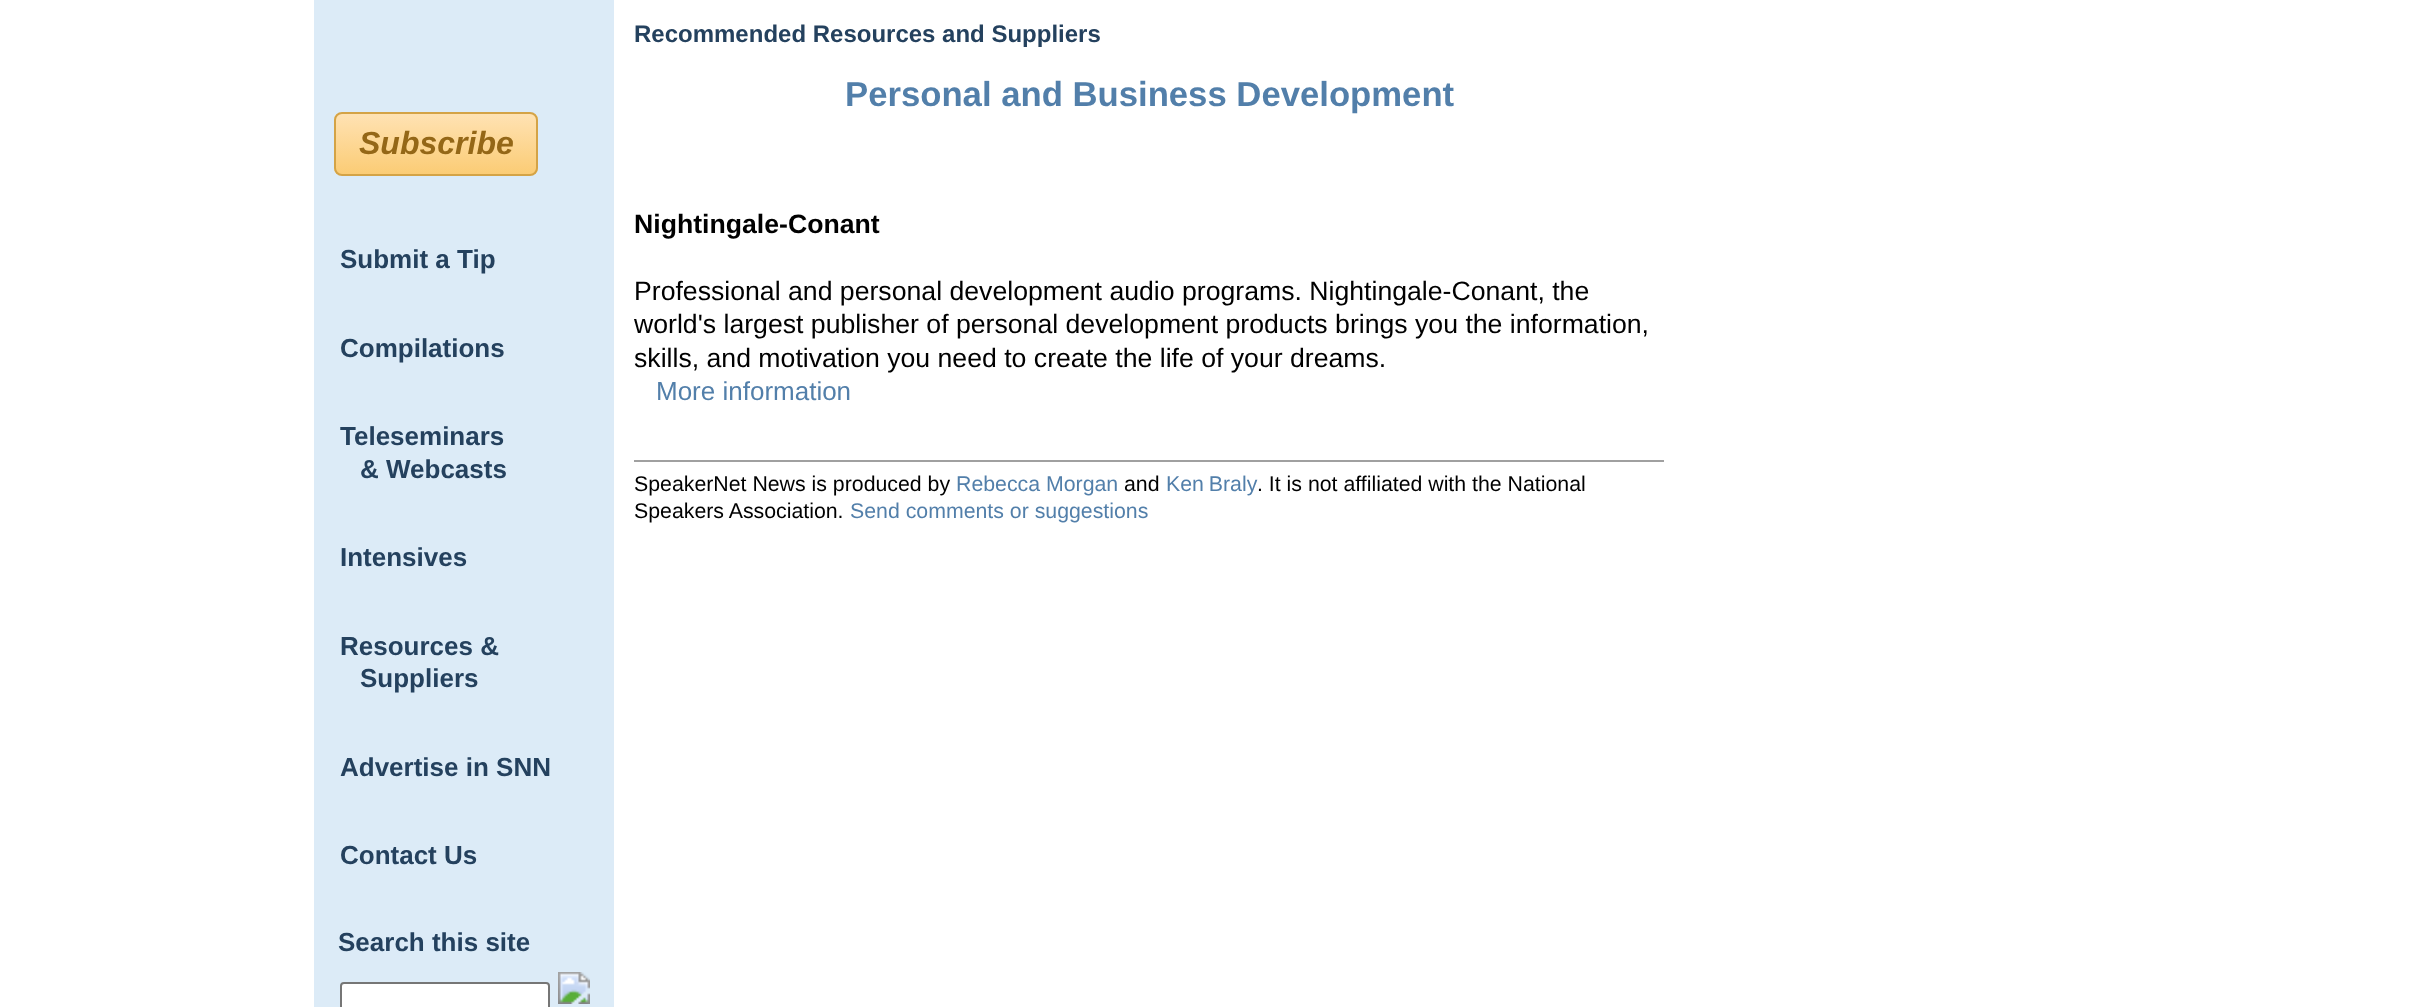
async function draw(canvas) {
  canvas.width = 2427
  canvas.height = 1007
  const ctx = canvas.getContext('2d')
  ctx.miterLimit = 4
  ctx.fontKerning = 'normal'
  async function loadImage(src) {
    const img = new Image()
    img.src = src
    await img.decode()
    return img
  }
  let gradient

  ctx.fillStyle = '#fff'
  ctx.fillRect(0, 0, 2427, 1007)
  ctx.fillStyle = '#dcebf7'
  ctx.fillRect(314, 0, 300, 1007)
  ctx.save()
  ctx.beginPath()
  ctx.roundRect(334, 112, 204, 64, 8)
  ctx.clip()
  gradient = ctx.createLinearGradient(436, 114, 436, 174)
  gradient.addColorStop(0, '#ffe2b3')
  gradient.addColorStop(1, '#fbcc75')
  ctx.fillStyle = gradient
  ctx.fillRect(334, 114, 204, 60)
  ctx.restore()
  ctx.beginPath()
  ctx.roundRect(335, 113, 202, 62, 7)
  ctx.strokeStyle = '#d4a346'
  ctx.lineWidth = 2
  ctx.stroke()
  ctx.font = 'italic bold 32px Liberation Sans'
  ctx.fillStyle = '#946717'
  ctx.fillText('Subscribe', 359, 154)
  ctx.font = 'bold 26px Liberation Sans'
  ctx.fillStyle = '#24415e'
  ctx.fillText('Submit a Tip', 340, 268)
  ctx.fillText('Compilations', 340, 357)
  ctx.fillText('Teleseminars', 340, 445)
  ctx.fillText('& Webcasts', 360, 478)
  ctx.fillText('Intensives', 340, 566)
  ctx.fillText('Resources &', 340, 655)
  ctx.fillText('Suppliers', 360, 687)
  ctx.fillText('Advertise in SNN', 340, 776)
  ctx.fillText('Contact Us', 340, 864)
  ctx.fillText('Search this site', 338, 951)
  ctx.fillStyle = '#fff'
  ctx.beginPath()
  ctx.roundRect(341, 983, 208, 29, 3)
  ctx.fill()
  ctx.strokeStyle = '#767676'
  ctx.stroke()
  ctx.drawImage(await loadImage('image0.png'), 558, 972, 32, 32)
  ctx.font = 'bold 24px Liberation Sans'
  ctx.fillStyle = '#24415e'
  ctx.fillText('Recommended Resources and Suppliers', 634, 42)
  ctx.font = 'bold 34.7px Liberation Sans'
  ctx.fillStyle = '#527faa'
  ctx.fillText('Personal and Business Development', 845, 106)
  ctx.font = 'bold 26.65px Liberation Sans'
  ctx.fillStyle = '#000'
  ctx.fillText('Nightingale-Conant', 634, 233)
  ctx.font = '26.65px Liberation Sans'
  ctx.fillText('Professional and personal development audio programs. Nightingale-Conant, the', 634, 300)
  ctx.fillText('world\'s largest publisher of personal development products brings you the information,', 634, 333)
  ctx.fillText('skills, and motivation you need to create the life of your dreams.', 634, 367)
  ctx.font = '26px Liberation Sans'
  ctx.fillStyle = '#527faa'
  ctx.fillText('More information', 656, 400)
  ctx.fillStyle = '#a0a0a0'
  ctx.fillRect(634, 460, 1030, 2)
  ctx.font = '21.3px Liberation Sans'
  ctx.fillStyle = '#000'
  ctx.fillText('SpeakerNet News is produced by', 634, 491)
  ctx.fillStyle = '#527faa'
  ctx.fillText('Rebecca Morgan', 956, 491)
  ctx.fillStyle = '#000'
  ctx.fillText('and', 1124, 491)
  ctx.wordSpacing = '-1px'
  ctx.fillStyle = '#527faa'
  ctx.fillText('Ken Braly', 1166, 491)
  ctx.wordSpacing = '0px'
  ctx.fillStyle = '#000'
  ctx.fillText('. It is not affiliated with the National', 1257, 491)
  ctx.fillText('Speakers Association.', 634, 518)
  ctx.fillStyle = '#527faa'
  ctx.fillText('Send comments or suggestions', 850, 518)
}

draw(document.querySelector('canvas'))
